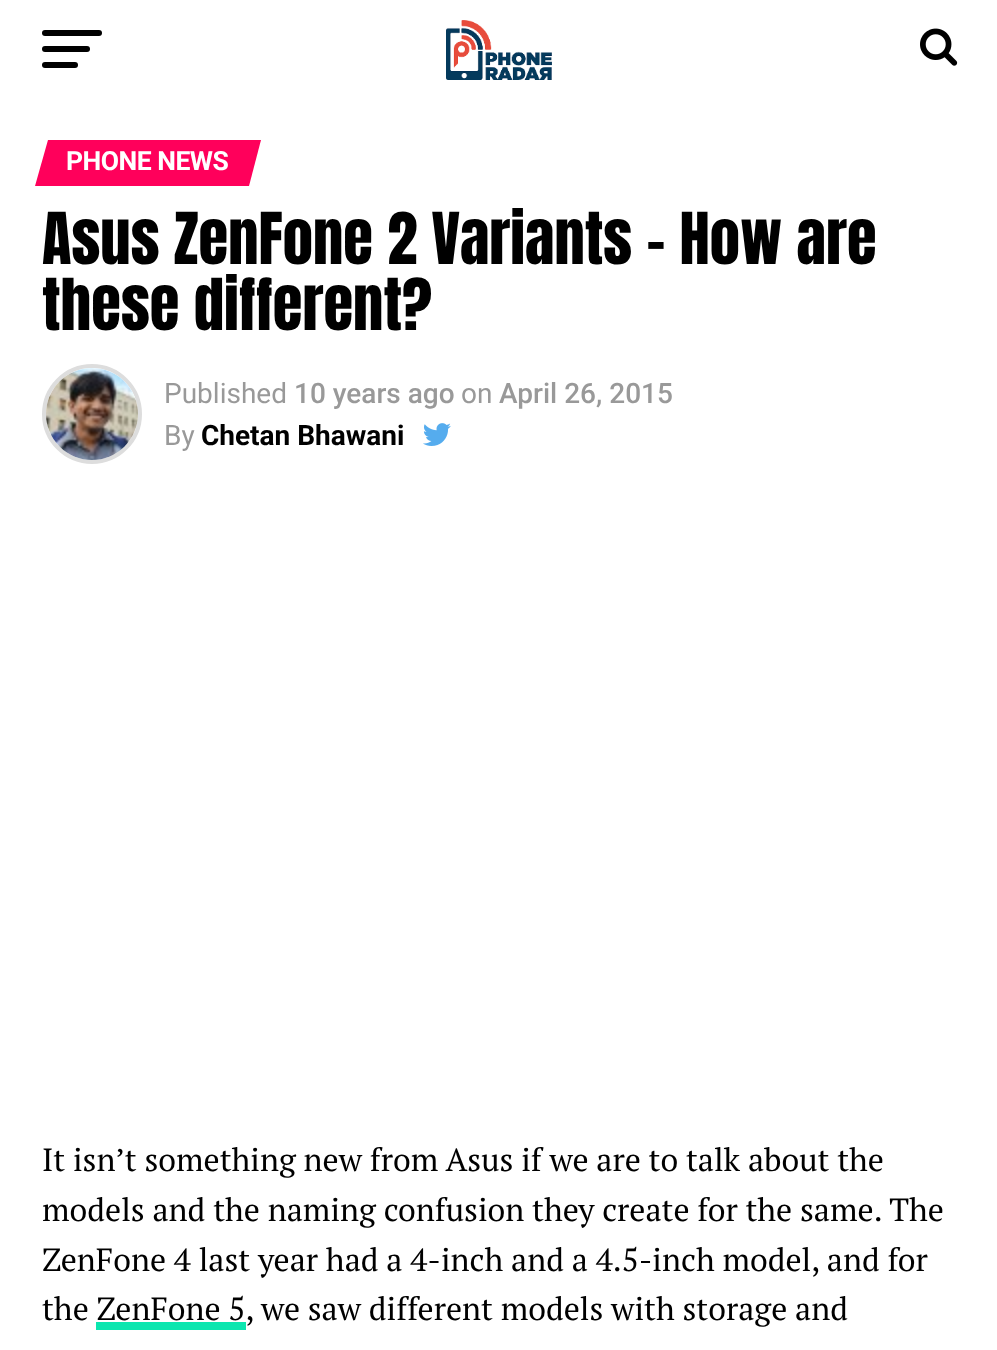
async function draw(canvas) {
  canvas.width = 997
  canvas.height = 1350
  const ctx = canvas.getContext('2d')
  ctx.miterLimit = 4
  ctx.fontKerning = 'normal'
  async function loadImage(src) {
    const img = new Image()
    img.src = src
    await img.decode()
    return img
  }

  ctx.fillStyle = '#fff'
  ctx.fillRect(0, 0, 997, 1350)
  ctx.fillStyle = '#000'
  ctx.beginPath()
  ctx.roundRect(42, 30, 60, 6, 3)
  ctx.fill()
  ctx.beginPath()
  ctx.roundRect(42, 46, 48, 6, 3)
  ctx.fill()
  ctx.beginPath()
  ctx.roundRect(42, 62, 36, 6, 3)
  ctx.fill()
  ctx.drawImage(await loadImage('image0.png'), 446, 20, 106, 60)
  ctx.drawImage(await loadImage('image1.png'), 920, 28, 38, 38)
  ctx.fillStyle = '#ff005b'
  ctx.beginPath()
  ctx.moveTo(48, 140)
  ctx.lineTo(261, 140)
  ctx.lineTo(249, 186)
  ctx.lineTo(35, 186)
  ctx.closePath()
  ctx.fill()
  ctx.letterSpacing = '-0.5px'
  ctx.font = 'bold 26.5px Roboto'
  ctx.fillStyle = '#fff'
  ctx.fillText('PHONE NEWS', 66, 170)
  ctx.letterSpacing = '0px'
  ctx.font = '60.75px Anton'
  ctx.fillStyle = '#000'
  ctx.fillText('Asus ZenFone 2 Variants – How are', 42, 264)
  ctx.fillText('these different?', 42, 330)
  ctx.beginPath()
  ctx.arc(92, 414, 48, 0, 2 * Math.PI)
  ctx.strokeStyle = '#ddd'
  ctx.lineWidth = 4
  ctx.stroke()
  ctx.drawImage(await loadImage('image2.png'), 46, 368, 92, 92)
  ctx.font = '28px Roboto'
  ctx.fillStyle = '#999'
  ctx.fillText('Published', 164, 403)
  ctx.font = '500 28px Roboto'
  ctx.fillText('10 years ago', 294, 403)
  ctx.font = '28px Roboto'
  ctx.fillText('on', 461, 403)
  ctx.font = '500 28px Roboto'
  ctx.fillText('April 26, 2015', 499, 403)
  ctx.font = '28px Roboto'
  ctx.fillText('By', 164, 445)
  ctx.font = 'bold 28px Roboto'
  ctx.fillStyle = '#000'
  ctx.fillText('Chetan Bhawani', 201, 445)
  ctx.drawImage(await loadImage('image3.png'), 423, 423, 28, 23)
  ctx.font = '32px PT Serif'
  ctx.fillText('It isn’t something new from Asus if we are to talk about the', 42, 1171)
  ctx.fillText('models and the naming confusion they create for the same. The', 42, 1221)
  ctx.fillText('ZenFone 4 last year had a 4-inch and a 4.5-inch model, and for', 42, 1271)
  ctx.fillText('the ZenFone 5, we saw different models with storage and', 42, 1320)
  ctx.fillStyle = '#0be6af'
  ctx.fillRect(96, 1322, 150, 8)
}

draw(document.querySelector('canvas'))
